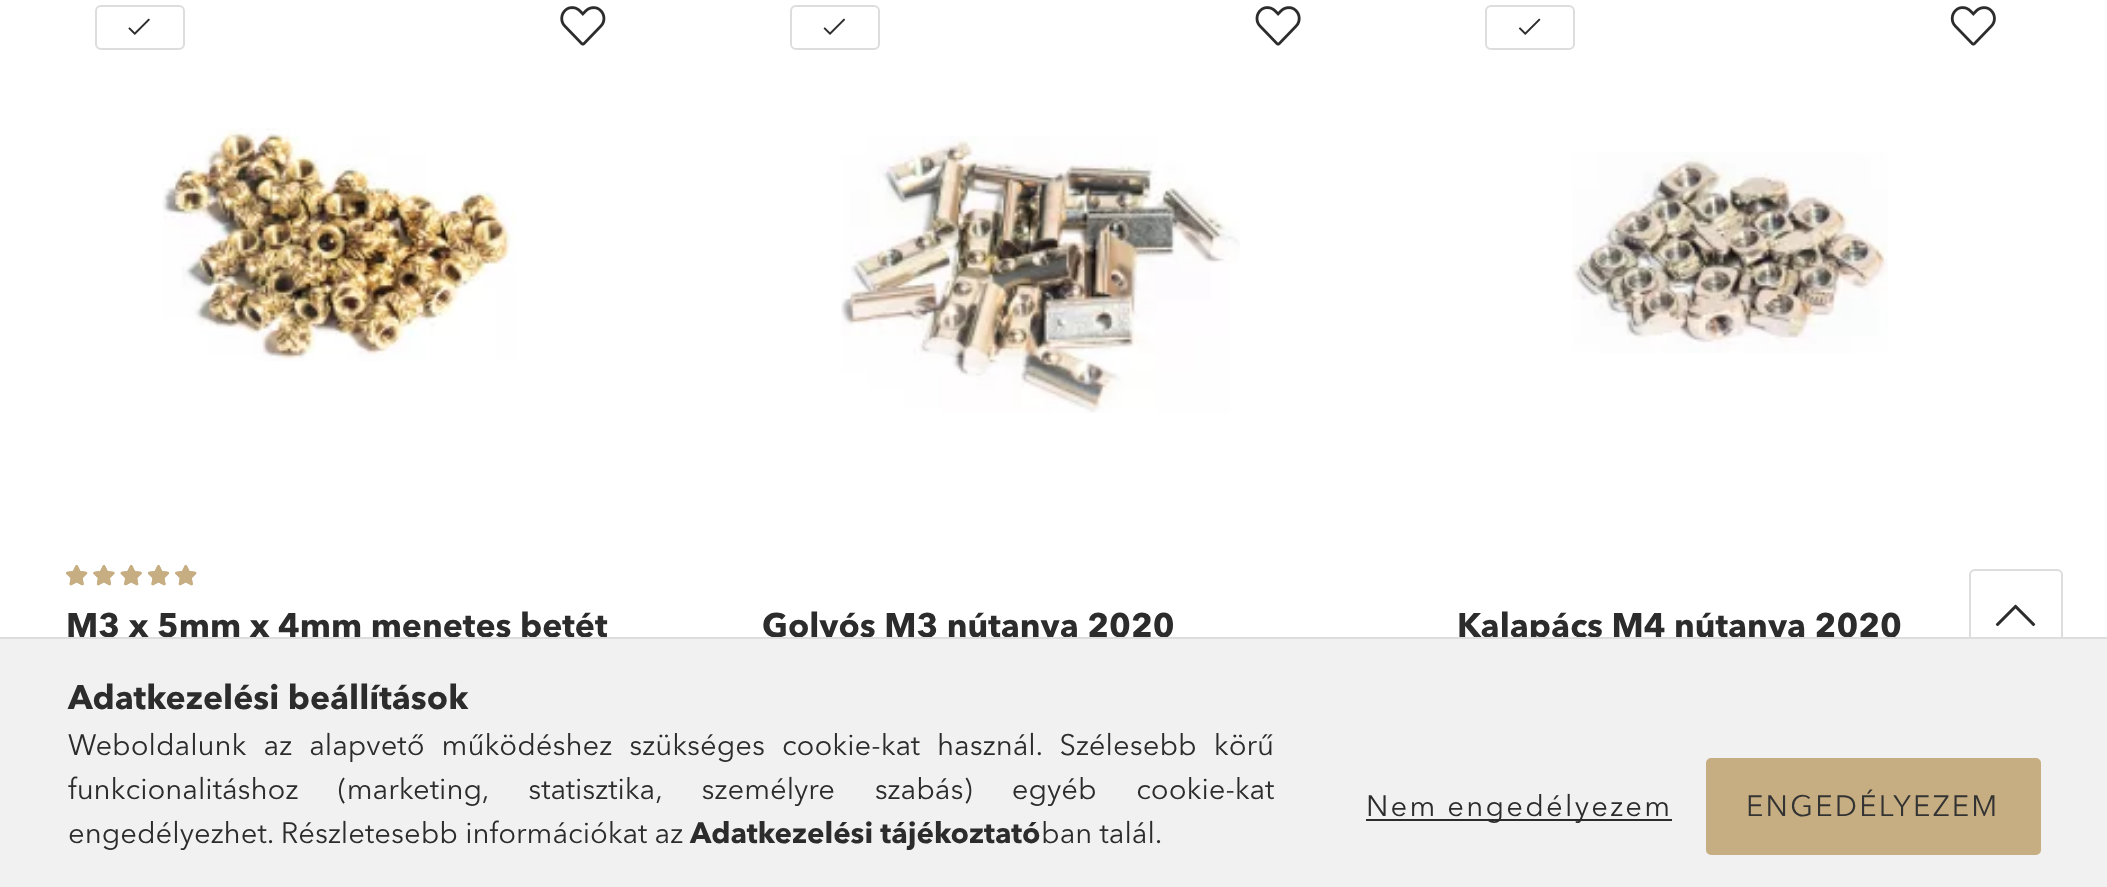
async function draw(canvas) {
  canvas.width = 2107
  canvas.height = 887
  const ctx = canvas.getContext('2d')
  ctx.miterLimit = 4
  ctx.fontKerning = 'normal'
  async function loadImage(src) {
    const img = new Image()
    img.src = src
    await img.decode()
    return img
  }

  ctx.fillStyle = '#fff'
  ctx.fillRect(0, 0, 2107, 887)
  ctx.beginPath()
  ctx.roundRect(96, 6, 88, 43, 5)
  ctx.strokeStyle = '#ddd'
  ctx.lineWidth = 2
  ctx.stroke()
  ctx.drawImage(await loadImage('image0.png'), 128, 18, 22, 17)
  ctx.drawImage(await loadImage('image1.png'), 560, 6, 46, 40)
  ctx.drawImage(await loadImage('image2.png'), 162, 128, 354, 233)
  ctx.drawImage(await loadImage('image3.png'), 66, 565, 131, 21)
  ctx.drawImage(await loadImage('image4.png'), 66, 565, 131, 21)
  ctx.font = 'bold 33.75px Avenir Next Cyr'
  ctx.fillStyle = '#2c2c2c'
  ctx.fillText('M3 x 5mm x 4mm menetes betét', 66, 637)
  ctx.beginPath()
  ctx.roundRect(791, 6, 88, 43, 5)
  ctx.stroke()
  ctx.drawImage(await loadImage('image5.png'), 823, 18, 23, 17)
  ctx.drawImage(await loadImage('image6.png'), 1255, 6, 46, 40)
  ctx.drawImage(await loadImage('image7.png'), 841, 136, 399, 277)
  ctx.fillText('Golyós M3 nútanya 2020', 762, 637)
  ctx.beginPath()
  ctx.roundRect(1486, 6, 88, 43, 5)
  ctx.stroke()
  ctx.drawImage(await loadImage('image8.png'), 1518, 18, 23, 17)
  ctx.drawImage(await loadImage('image9.png'), 1950, 6, 46, 40)
  ctx.drawImage(await loadImage('image10.png'), 1572, 152, 316, 201)
  ctx.fillText('Kalapács M4 nútanya 2020', 1457, 637)
  ctx.beginPath()
  ctx.roundRect(1970, 570, 92, 93, 5)
  ctx.stroke()
  ctx.drawImage(await loadImage('image11.png'), 1995, 604, 41, 23)
  ctx.fillStyle = '#f1f1f1'
  ctx.fillRect(0, 639, 2107, 248)
  ctx.fillStyle = '#ddd'
  ctx.fillRect(0, 637, 2107, 2)
  ctx.fillStyle = '#2c2c2c'
  ctx.fillText('Adatkezelési beállítások', 68, 709)
  ctx.wordSpacing = '9.75px'
  ctx.font = '29.25px Avenir Next Cyr'
  ctx.fillText('Weboldalunk az alapvető működéshez szükséges cookie-kat használ. Szélesebb körű', 68, 755)
  ctx.wordSpacing = '32.25px'
  ctx.fillText('funkcionalitáshoz (marketing, statisztika, személyre szabás) egyéb cookie-kat', 68, 799)
  ctx.wordSpacing = '0px'
  ctx.fillText('engedélyezhet. Részletesebb információkat az', 68, 843)
  ctx.font = 'bold 29.25px Avenir Next Cyr'
  ctx.fillText('Adatkezelési tájékoztató', 690, 843)
  ctx.font = '29.25px Avenir Next Cyr'
  ctx.fillText('ban talál.', 1041, 843)
  ctx.fillRect(1366, 819, 306, 2)
  ctx.letterSpacing = '2.25px'
  ctx.fillText('Nem engedélyezem', 1366, 816)
  ctx.fillStyle = '#c6ae82'
  ctx.beginPath()
  ctx.roundRect(1707, 759, 333, 95, 4)
  ctx.fill()
  ctx.strokeStyle = '#c6ae82'
  ctx.stroke()
  ctx.fillStyle = '#333'
  ctx.fillText('ENGEDÉLYEZEM', 1746, 816)
}

draw(document.querySelector('canvas'))
